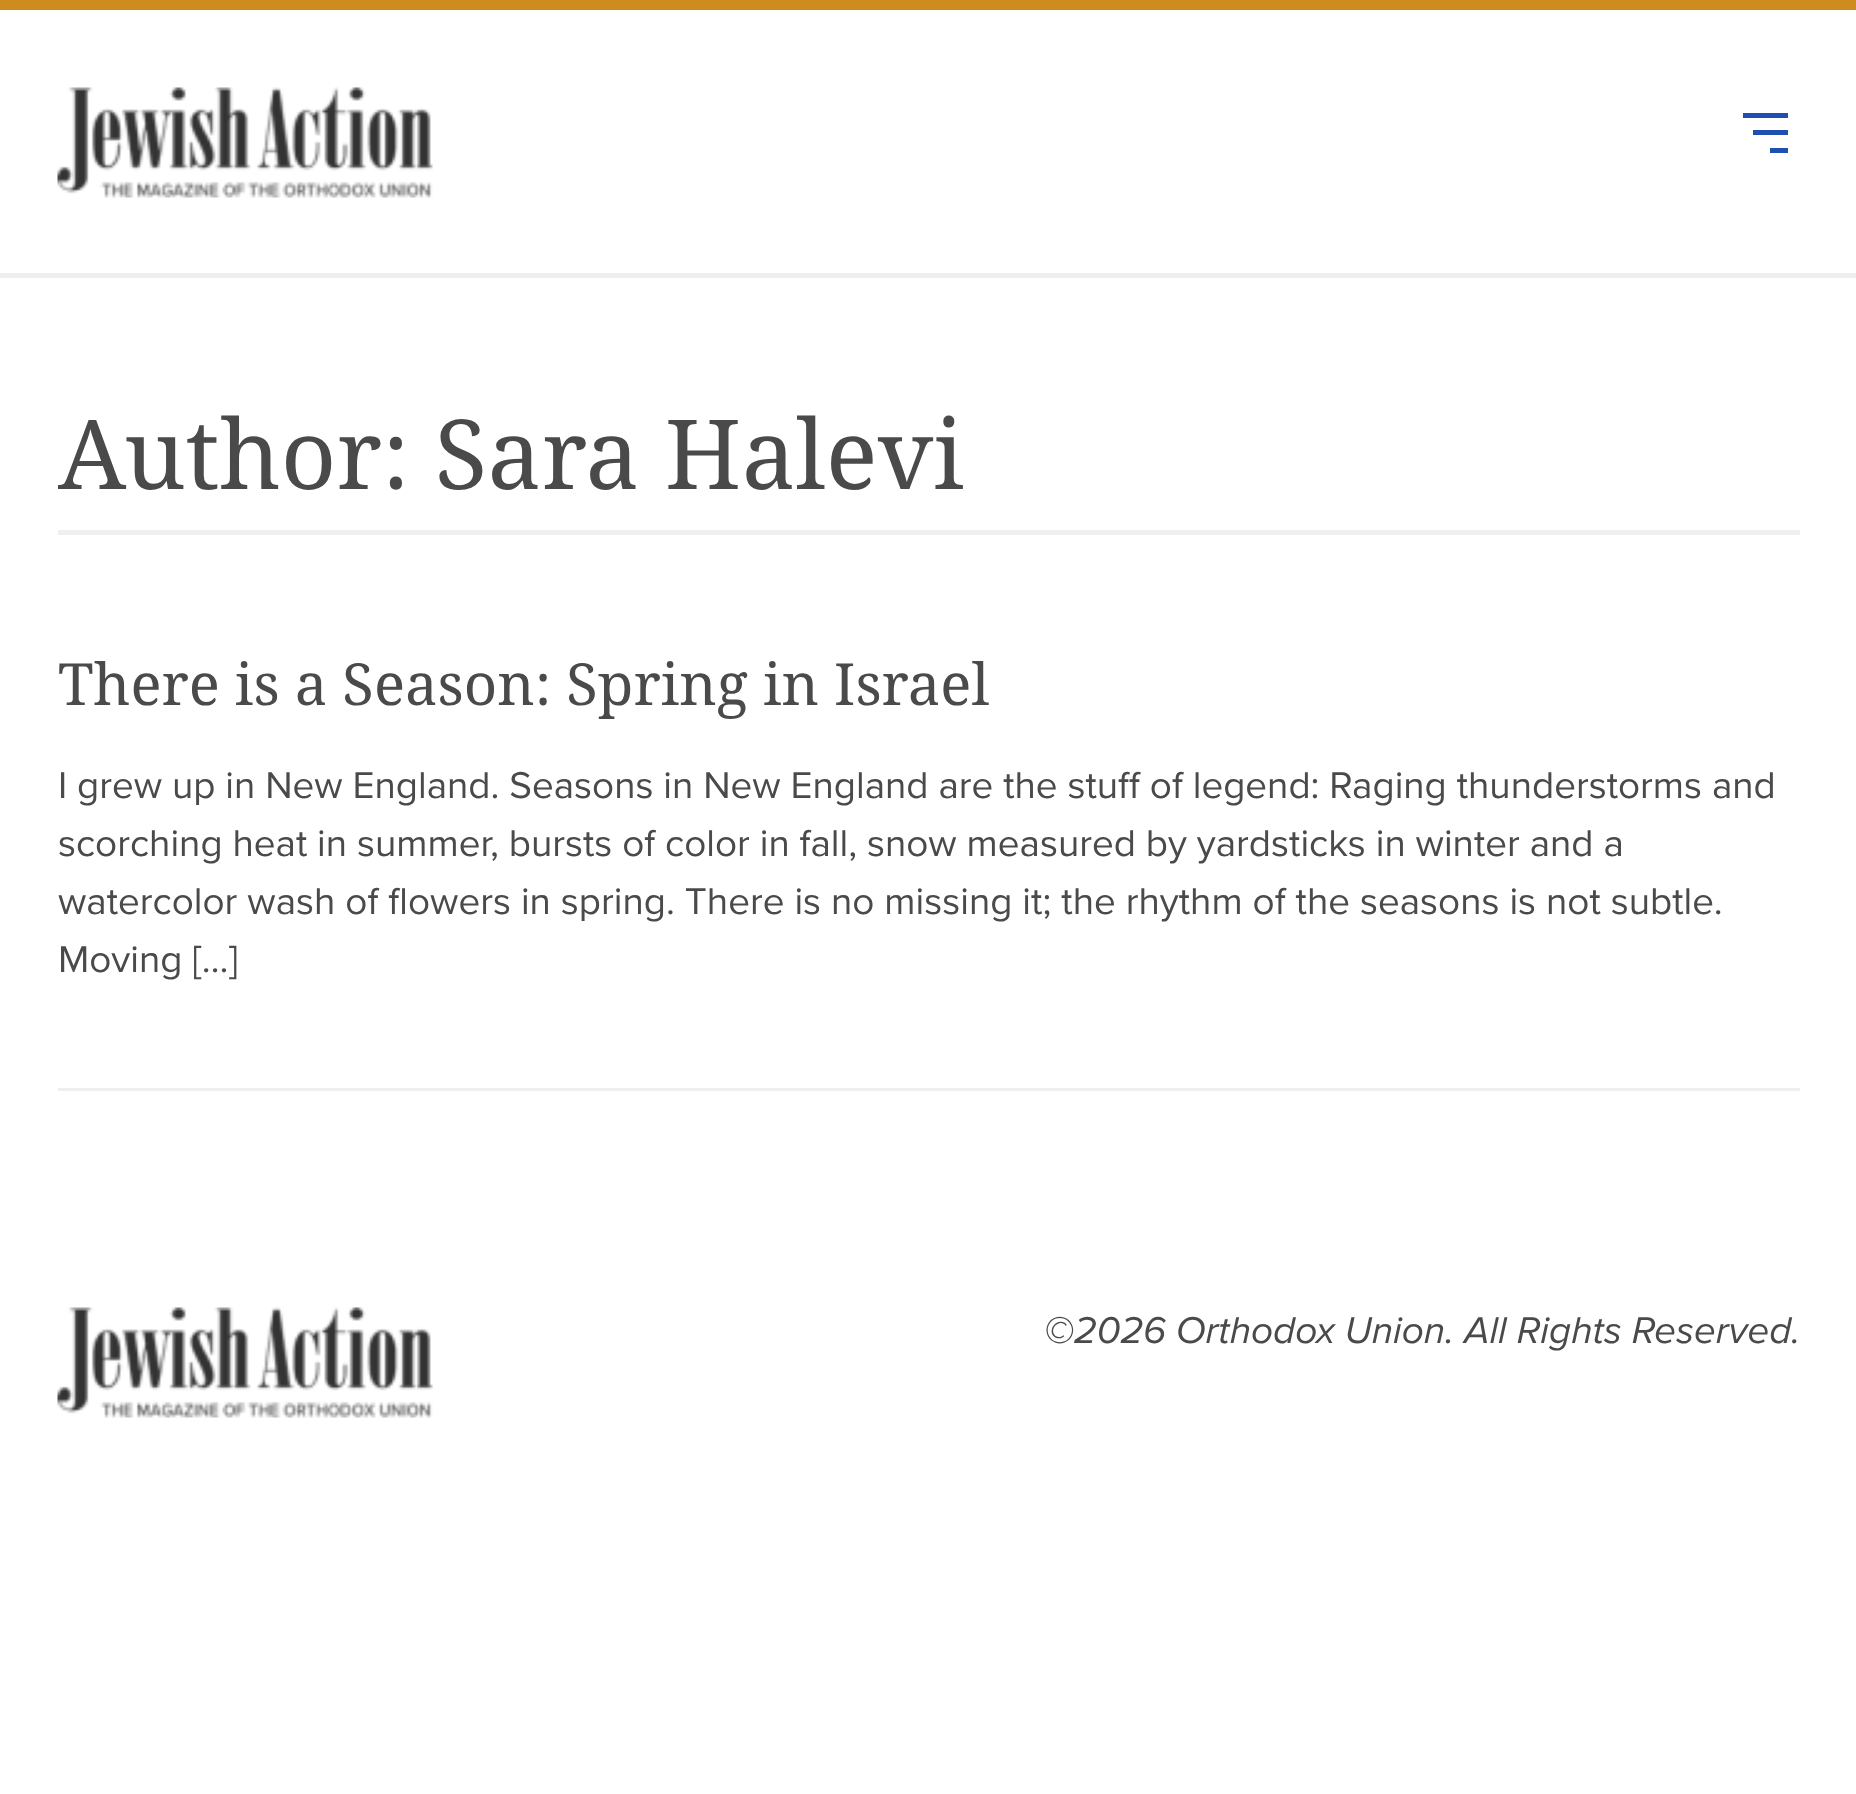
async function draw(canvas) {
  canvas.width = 1856
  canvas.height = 1794
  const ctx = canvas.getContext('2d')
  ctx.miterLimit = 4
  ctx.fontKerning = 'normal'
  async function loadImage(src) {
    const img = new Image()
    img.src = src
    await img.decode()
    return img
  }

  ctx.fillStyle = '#fff'
  ctx.fillRect(0, 0, 1856, 1794)
  ctx.fillStyle = '#ce8b1e'
  ctx.fillRect(0, 0, 1856, 10)
  ctx.fillStyle = '#eee'
  ctx.fillRect(0, 273, 1856, 5)
  ctx.drawImage(await loadImage('image0.png'), 57, 87, 376, 111)
  ctx.fillStyle = '#1e50b4'
  ctx.fillRect(1743, 113, 45, 5)
  ctx.fillRect(1753, 130, 35, 5)
  ctx.fillRect(1770, 148, 18, 5)
  ctx.fillStyle = '#efefef'
  ctx.fillRect(58, 530, 1742, 5)
  ctx.font = '96.6px Noto Serif'
  ctx.fillStyle = '#4a4a4a'
  ctx.fillText('Author: Sara Halevi', 58, 489)
  ctx.fillStyle = '#efefef'
  ctx.fillRect(58, 1088, 1742, 3)
  ctx.font = '58px Noto Serif'
  ctx.fillStyle = '#4a4a4a'
  ctx.fillText('There is a Season: Spring in Israel', 58, 705)
  ctx.wordSpacing = '-0.1px'
  ctx.font = '38.65px Proxima Nova'
  ctx.fillText('I grew up in New England. Seasons in New England are the stuff of legend: Raging thunderstorms and', 58, 798)
  ctx.fillText('scorching heat in summer, bursts of color in fall, snow measured by yardsticks in winter and a', 58, 856)
  ctx.wordSpacing = '0px'
  ctx.fillText('watercolor wash of flowers in spring. There is no missing it; the rhythm of the seasons is not subtle.', 58, 914)
  ctx.fillText('Moving […]', 58, 972)
  ctx.drawImage(await loadImage('image0.png'), 57, 1307, 376, 111)
  ctx.font = 'italic 38.65px Proxima Nova'
  ctx.fillText('©2026 Orthodox Union. All Rights Reserved.', 1044, 1343)
}

draw(document.querySelector('canvas'))
